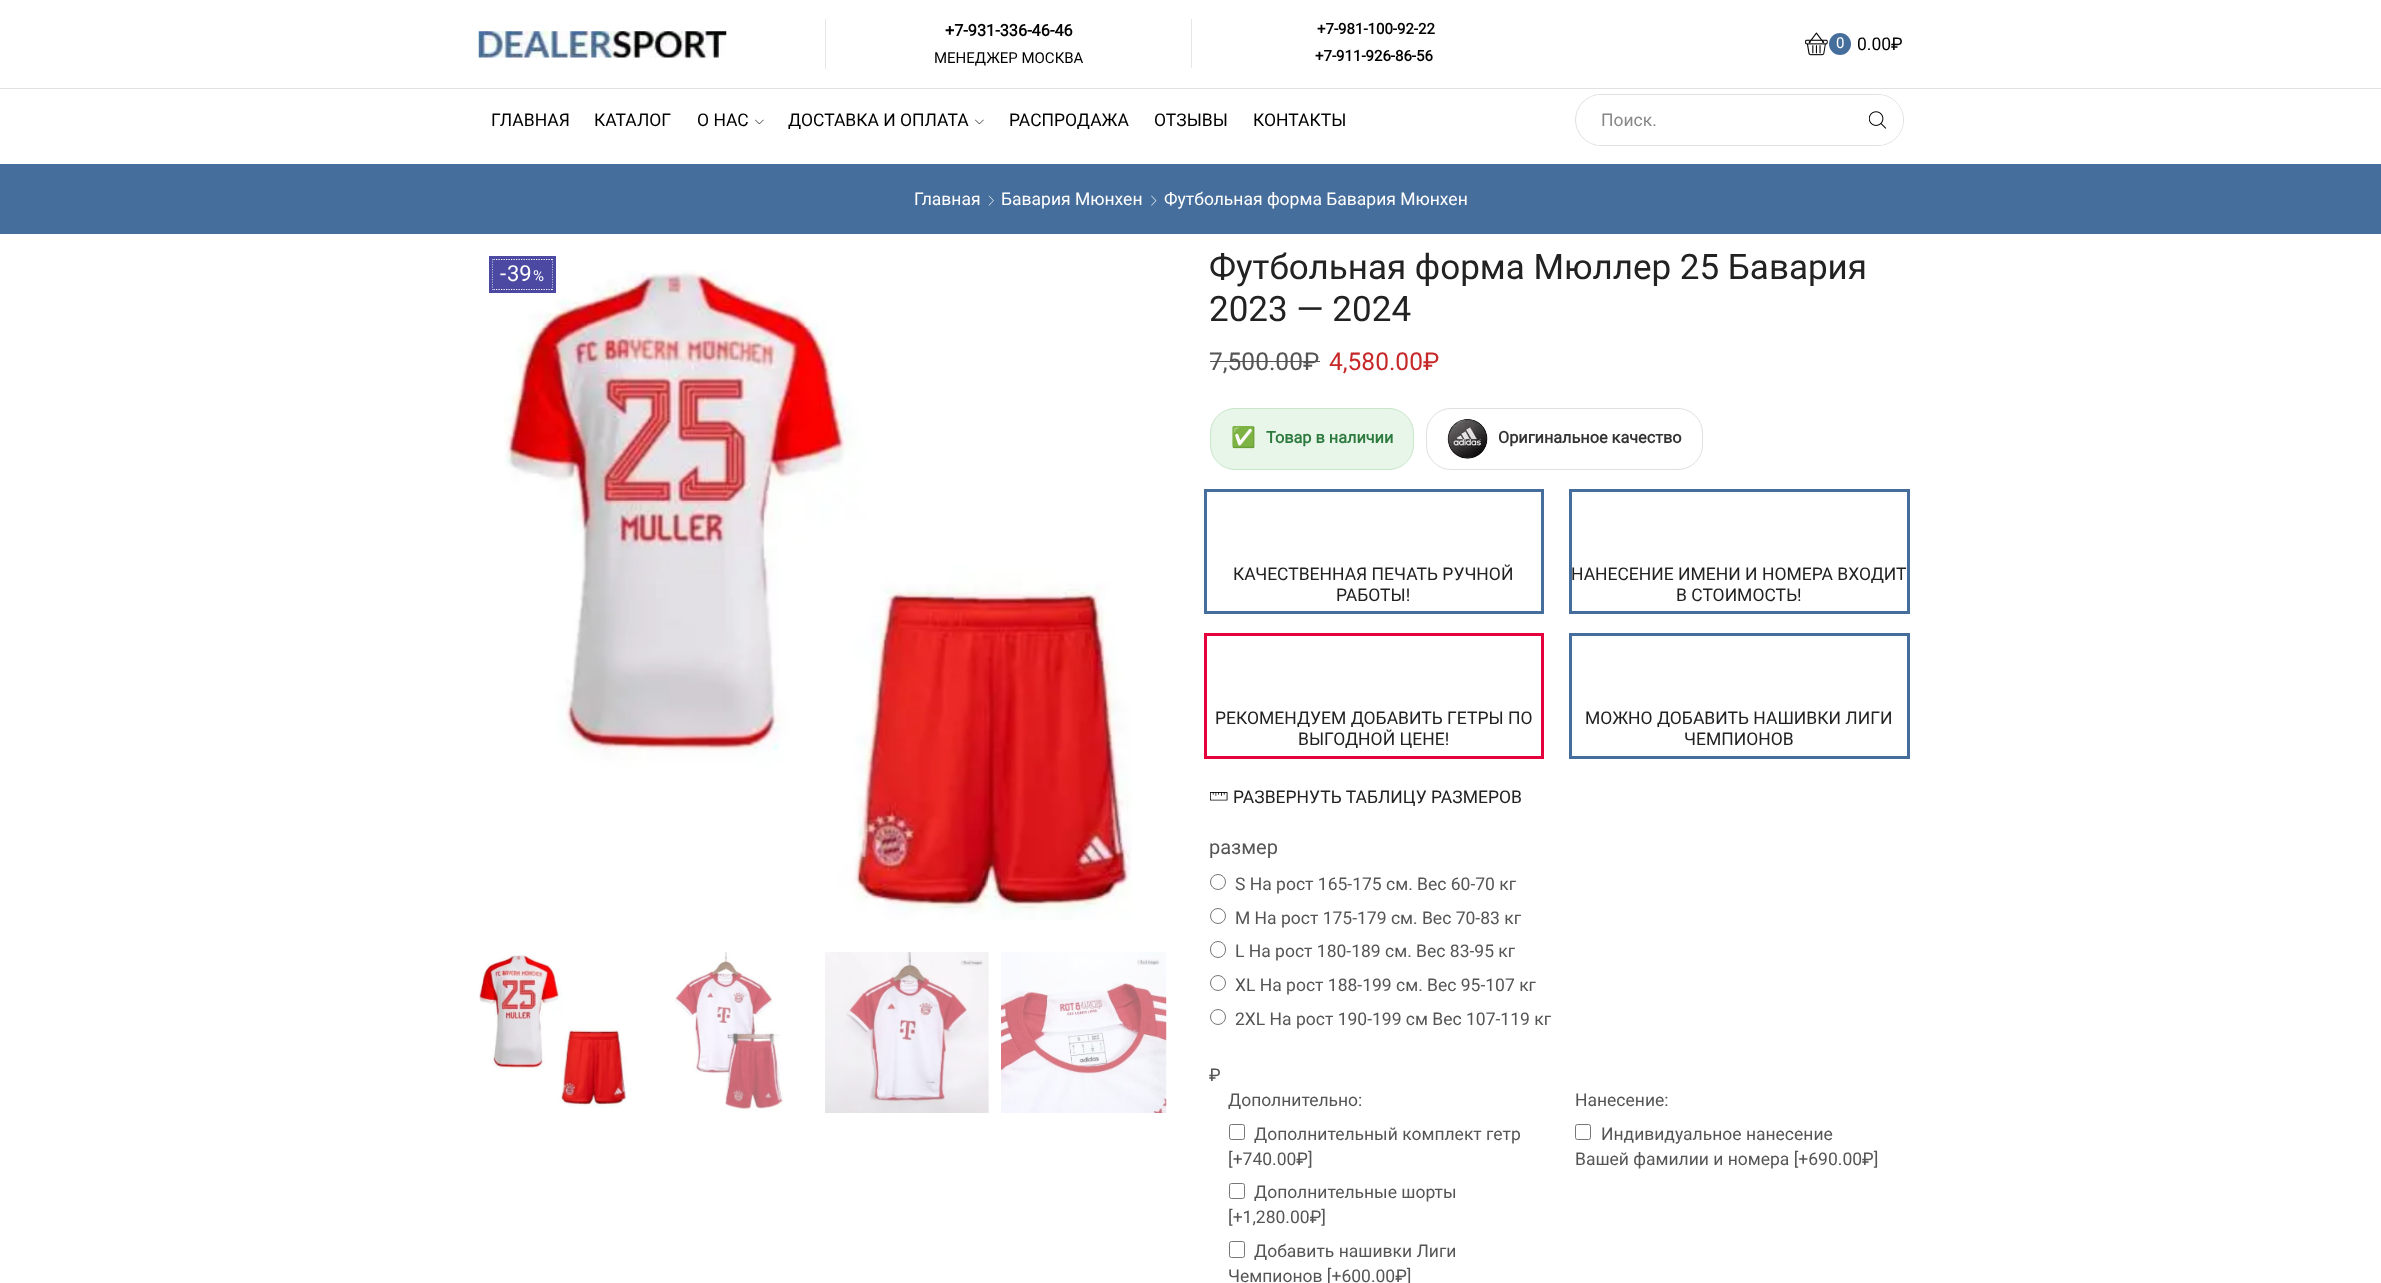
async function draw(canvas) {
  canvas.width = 2381
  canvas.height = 1283
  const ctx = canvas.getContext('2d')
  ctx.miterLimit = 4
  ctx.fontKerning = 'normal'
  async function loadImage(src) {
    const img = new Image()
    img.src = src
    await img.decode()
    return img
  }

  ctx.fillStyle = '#fff'
  ctx.fillRect(0, 0, 2381, 1283)
  ctx.drawImage(await loadImage('image0.png'), 478, 31, 249, 27)
  ctx.fillStyle = '#e6e6e6'
  ctx.fillRect(825, 19, 1, 50)
  ctx.font = 'bold 16.25px Roboto'
  ctx.fillStyle = '#000'
  ctx.fillText('+7-931-336-46-46', 945, 36)
  ctx.font = '15px Roboto'
  ctx.fillText('МЕНЕДЖЕР МОСКВА', 934, 63)
  ctx.fillStyle = '#e6e6e6'
  ctx.fillRect(1191, 19, 1, 49)
  ctx.font = 'bold 15px Roboto'
  ctx.fillStyle = '#000'
  ctx.fillText('+7-981-100-92-22', 1317, 34)
  ctx.fillText('+7-911-926-86-56', 1315, 61)
  ctx.drawImage(await loadImage('image1.png'), 1805, 32, 23, 24)
  ctx.fillStyle = '#466e9c'
  ctx.beginPath()
  ctx.arc(1840, 44, 11, 0, 2 * Math.PI)
  ctx.fill()
  ctx.font = '15px Roboto'
  ctx.fillStyle = '#fff'
  ctx.fillText('0', 1836, 48)
  ctx.font = '17.5px Roboto'
  ctx.fillStyle = '#000'
  ctx.fillText('0.00₽', 1857, 50)
  ctx.fillStyle = '#e1e1e1'
  ctx.fillRect(0, 88, 2381, 1)
  ctx.fillStyle = '#000'
  ctx.fillText('ГЛАВНАЯ', 491, 126)
  ctx.fillText('КАТАЛОГ', 594, 126)
  ctx.fillText('О НАС', 697, 126)
  ctx.drawImage(await loadImage('image2.png'), 755, 119, 9, 6)
  ctx.fillText('ДОСТАВКА И ОПЛАТА', 788, 126)
  ctx.drawImage(await loadImage('image2.png'), 975, 119, 9, 6)
  ctx.fillText('РАСПРОДАЖА', 1009, 126)
  ctx.fillText('ОТЗЫВЫ', 1154, 126)
  ctx.fillText('КОНТАКТЫ', 1253, 126)
  ctx.beginPath()
  ctx.roundRect(1575.5, 94.5, 328, 51, 25.5)
  ctx.strokeStyle = '#e1e1e1'
  ctx.stroke()
  ctx.save()
  ctx.beginPath()
  ctx.roundRect(1576, 95, 327, 50, 25)
  ctx.clip()
  ctx.fillStyle = '#fff'
  ctx.fillRect(1589, 95, 264, 50)
  ctx.restore()
  ctx.fillStyle = '#888'
  ctx.fillText('Поиск.', 1601, 126)
  ctx.fillStyle = '#fff'
  ctx.beginPath()
  ctx.arc(1878, 120, 25, 0, 2 * Math.PI)
  ctx.fill()
  ctx.drawImage(await loadImage('image3.png'), 1869, 111, 17, 18)
  ctx.fillStyle = '#466e9c'
  ctx.fillRect(0, 164, 2381, 70)
  ctx.fillStyle = '#fff'
  ctx.fillText('Главная', 914, 205)
  ctx.drawImage(await loadImage('image4.png'), 988, 195, 6, 11)
  ctx.fillText('Бавария Мюнхен', 1001, 205)
  ctx.drawImage(await loadImage('image5.png'), 1151, 195, 6, 11)
  ctx.fillText('Футбольная форма Бавария Мюнхен', 1164, 205)
  ctx.drawImage(await loadImage('image6.png'), 504, 270, 628, 650)
  ctx.fillStyle = '#4c49a2'
  ctx.fillRect(492, 259, 61, 31)
  ctx.beginPath()
  ctx.moveTo(491, 259.5)
  ctx.lineTo(554, 259.5)
  ctx.moveTo(553, 259)
  ctx.lineTo(553, 290)
  ctx.moveTo(491, 289.5)
  ctx.lineTo(554, 289.5)
  ctx.moveTo(492, 259)
  ctx.lineTo(492, 290)
  ctx.strokeStyle = '#fff'
  ctx.lineWidth = 1.2
  ctx.setLineDash([1.25, 1.25])
  ctx.stroke()
  ctx.strokeStyle = '#4c49a2'
  ctx.lineWidth = 3
  ctx.setLineDash([])
  ctx.strokeRect(490.5, 257.5, 64, 34)
  ctx.font = '22px Roboto'
  ctx.fillStyle = '#fff'
  ctx.fillText('-', 500, 281)
  ctx.fillText('39', 507, 281)
  ctx.font = '15px Roboto'
  ctx.fillText('%', 533, 281)
  ctx.drawImage(await loadImage('image7.png'), 479, 955, 148, 153)
  ctx.drawImage(await loadImage('image8.png'), 674, 952, 110, 159)
  ctx.drawImage(await loadImage('image9.png'), 825, 952, 164, 161)
  ctx.drawImage(await loadImage('image10.png'), 1001, 952, 166, 161)
  ctx.font = '35px Roboto'
  ctx.fillStyle = '#222'
  ctx.fillText('Футбольная форма Мюллер 25 Бавария', 1209, 279)
  ctx.fillText('2023 — 2024', 1209, 321)
  ctx.font = '24.5px Roboto'
  ctx.fillStyle = '#555'
  ctx.fillText('7,500.00', 1209, 370)
  ctx.fillRect(1210, 361, 94, 1)
  ctx.fillText('₽', 1303, 370)
  ctx.fillRect(1304, 361, 16, 1)
  ctx.fillStyle = '#c62828'
  ctx.fillText('4,580.00₽', 1329, 370)
  ctx.fillStyle = '#e8f5e9'
  ctx.beginPath()
  ctx.roundRect(1210.5, 408.5, 203, 61, 24.5)
  ctx.fill()
  ctx.strokeStyle = '#c8e6c9'
  ctx.lineWidth = 1
  ctx.stroke()
  ctx.font = 'bold 20px Noto Color Emoji'
  ctx.fillStyle = '#2d7a3e'
  ctx.fillText('✅', 1231, 444)
  ctx.font = 'bold 16.25px Roboto'
  ctx.fillText('Товар в наличии', 1266, 443)
  ctx.beginPath()
  ctx.roundRect(1426.5, 408.5, 276, 61, 24.5)
  ctx.strokeStyle = '#e0e0e0'
  ctx.stroke()
  ctx.drawImage(await loadImage('image11.png'), 1447, 418, 41, 41)
  ctx.fillStyle = '#333'
  ctx.fillText('Оригинальное качество', 1498, 443)
  ctx.strokeStyle = '#466e9c'
  ctx.lineWidth = 3
  ctx.strokeRect(1205.5, 490.5, 337, 122)
  ctx.font = '17.5px Roboto'
  ctx.fillStyle = '#222'
  ctx.fillText('КАЧЕСТВЕННАЯ ПЕЧАТЬ РУЧНОЙ', 1233, 580)
  ctx.fillText('РАБОТЫ!', 1336, 601)
  ctx.strokeStyle = '#e5003d'
  ctx.strokeRect(1205.5, 634.5, 337, 123)
  ctx.fillText('РЕКОМЕНДУЕМ ДОБАВИТЬ ГЕТРЫ ПО', 1215, 724)
  ctx.fillText('ВЫГОДНОЙ ЦЕНЕ!', 1298, 745)
  ctx.strokeStyle = '#466e9c'
  ctx.strokeRect(1570.5, 490.5, 338, 122)
  ctx.fillText('НАНЕСЕНИЕ ИМЕНИ И НОМЕРА ВХОДИТ', 1571, 580)
  ctx.fillText('В СТОИМОСТЬ!', 1676, 601)
  ctx.strokeRect(1570.5, 634.5, 338, 123)
  ctx.fillText('МОЖНО ДОБАВИТЬ НАШИВКИ ЛИГИ', 1585, 724)
  ctx.fillText('ЧЕМПИОНОВ', 1684, 745)
  ctx.drawImage(await loadImage('image12.png'), 1210, 792, 18, 9)
  ctx.fillText('РАЗВЕРНУТЬ ТАБЛИЦУ РАЗМЕРОВ', 1233, 803)
  ctx.font = '20px Roboto'
  ctx.fillStyle = '#555'
  ctx.fillText('размер', 1209, 854)
  ctx.beginPath()
  ctx.arc(1218, 882, 7.5, 0, 2 * Math.PI)
  ctx.strokeStyle = '#767676'
  ctx.lineWidth = 1
  ctx.stroke()
  ctx.font = '17.5px Roboto'
  ctx.fillText('S На рост 165-175 см. Вес 60-70 кг', 1235, 890)
  ctx.beginPath()
  ctx.arc(1218, 916, 7.5, 0, 2 * Math.PI)
  ctx.stroke()
  ctx.fillText('M На рост 175-179 см. Вес 70-83 кг', 1235, 924)
  ctx.beginPath()
  ctx.roundRect(1210.5, 941.5, 15, 16, 7.5)
  ctx.stroke()
  ctx.fillText('L На рост 180-189 см. Вес 83-95 кг', 1235, 957)
  ctx.beginPath()
  ctx.arc(1218, 983, 7.5, 0, 2 * Math.PI)
  ctx.stroke()
  ctx.fillText('XL На рост 188-199 см. Вес 95-107 кг', 1235, 991)
  ctx.beginPath()
  ctx.arc(1218, 1017, 7.5, 0, 2 * Math.PI)
  ctx.stroke()
  ctx.fillText('2XL На рост 190-199 см Вес 107-119 кг', 1235, 1025)
  ctx.fillText('₽', 1209, 1081)
  ctx.fillText('Дополнительно:', 1228, 1106)
  ctx.beginPath()
  ctx.roundRect(1229.5, 1124.5, 15, 15, 2)
  ctx.stroke()
  ctx.fillText('Дополнительный комплект гетр', 1254, 1140)
  ctx.fillText('[+740.00₽]', 1228, 1165)
  ctx.beginPath()
  ctx.roundRect(1229.5, 1183.5, 15, 15, 2)
  ctx.stroke()
  ctx.fillText('Дополнительные шорты', 1254, 1198)
  ctx.fillText('[+1,280.00₽]', 1228, 1223)
  ctx.beginPath()
  ctx.roundRect(1229.5, 1241.5, 15, 16, 2)
  ctx.stroke()
  ctx.fillText('Добавить нашивки Лиги', 1254, 1257)
  ctx.fillText('Чемпионов [+600.00₽]', 1228, 1282)
  ctx.fillText('Нанесение:', 1575, 1106)
  ctx.beginPath()
  ctx.roundRect(1575.5, 1124.5, 15, 15, 2)
  ctx.stroke()
  ctx.fillText('Индивидуальное нанесение', 1601, 1140)
  ctx.fillText('Вашей фамилии и номера [+690.00₽]', 1575, 1165)
}

draw(document.querySelector('canvas'))
